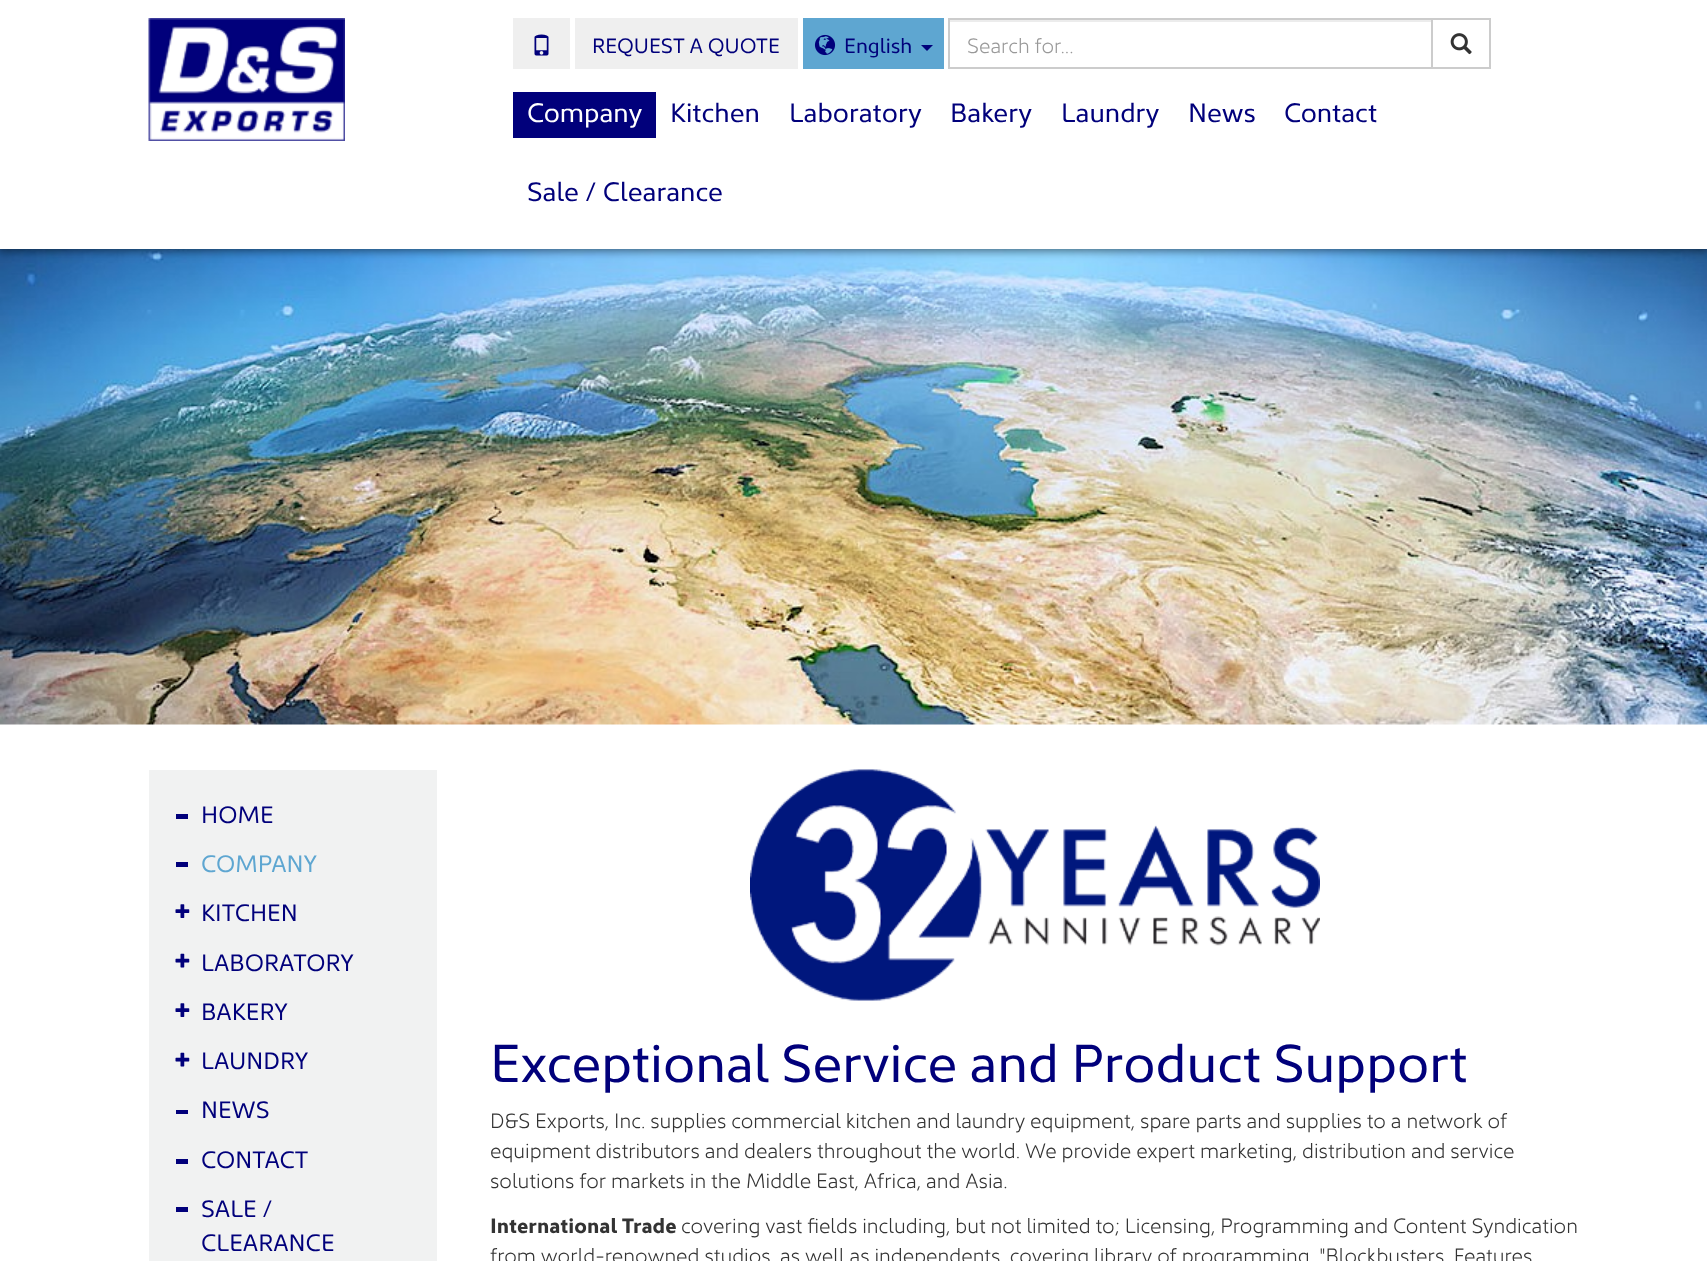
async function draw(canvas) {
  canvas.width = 1707
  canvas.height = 1261
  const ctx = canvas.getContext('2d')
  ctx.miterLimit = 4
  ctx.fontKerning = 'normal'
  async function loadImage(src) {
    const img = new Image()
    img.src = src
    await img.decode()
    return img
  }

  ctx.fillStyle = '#fff'
  ctx.fillRect(0, 0, 1707, 1261)
  ctx.drawImage(await loadImage('image4.png'), 0, 249, 1707, 476)
  ctx.fillStyle = '#00000080'
  ctx.filter = 'blur(4.5px)'
  ctx.beginPath()
  ctx.rect(-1, -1, 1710, 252)
  ctx.fill()
  ctx.filter = 'none'
  ctx.fillStyle = '#fff'
  ctx.fillRect(0, 0, 1707, 249)
  ctx.drawImage(await loadImage('image0.png'), 148, 18, 197, 123)
  ctx.fillStyle = '#efefef'
  ctx.fillRect(513, 18, 57, 51)
  ctx.drawImage(await loadImage('image1.png'), 534, 34, 15, 22)
  ctx.fillRect(575, 18, 223, 51)
  ctx.font = '21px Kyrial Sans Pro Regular'
  ctx.fillStyle = '#01007b'
  ctx.fillText('REQUEST A QUOTE', 592, 53)
  ctx.fillStyle = '#5ea6d1'
  ctx.fillRect(803, 18, 141, 51)
  ctx.drawImage(await loadImage('image2.png'), 814, 34, 22, 22)
  ctx.fillStyle = '#01007b'
  ctx.fillText('English', 844, 53)
  ctx.beginPath()
  ctx.moveTo(921, 45)
  ctx.lineTo(933, 45)
  ctx.lineTo(927, 51)
  ctx.closePath()
  ctx.fill()
  ctx.fillStyle = '#ececec'
  ctx.fillRect(950, 20, 481, 2)
  ctx.strokeStyle = '#ccc'
  ctx.lineWidth = 2
  ctx.strokeRect(949, 19, 483, 49)
  ctx.font = '300 21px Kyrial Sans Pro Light'
  ctx.fillStyle = '#999'
  ctx.fillText('Search for...', 967, 53)
  ctx.strokeRect(1432, 19, 58, 49)
  ctx.drawImage(await loadImage('image3.png'), 1450, 33, 22, 22)
  ctx.fillStyle = '#01007b'
  ctx.fillRect(513, 92, 143, 46)
  ctx.font = '27px Kyrial Sans Pro Regular'
  ctx.fillStyle = '#fff'
  ctx.fillText('Company', 527, 122)
  ctx.fillStyle = '#01007b'
  ctx.fillText('Kitchen', 670, 122)
  ctx.fillText('Laboratory', 789, 122)
  ctx.fillText('Bakery', 950, 122)
  ctx.fillText('Laundry', 1061, 122)
  ctx.fillText('News', 1188, 122)
  ctx.fillText('Contact', 1284, 122)
  ctx.fillText('Sale / Clearance', 527, 201)
  ctx.fillStyle = '#f1f2f2'
  ctx.fillRect(149, 770, 288, 491)
  ctx.fillStyle = '#01007b'
  ctx.fillRect(176, 814, 12, 5)
  ctx.font = '24px Kyrial Sans Pro Regular'
  ctx.fillText('HOME', 201, 823)
  ctx.fillRect(176, 862, 12, 5)
  ctx.fillStyle = '#5ea6d1'
  ctx.fillText('COMPANY', 201, 872)
  ctx.drawImage(await loadImage('image5.png'), 175, 904, 15, 14)
  ctx.fillStyle = '#01007b'
  ctx.fillText('KITCHEN', 201, 921)
  ctx.drawImage(await loadImage('image6.png'), 175, 953, 15, 15)
  ctx.fillText('LABORATORY', 201, 971)
  ctx.drawImage(await loadImage('image5.png'), 175, 1003, 15, 14)
  ctx.fillText('BAKERY', 201, 1020)
  ctx.drawImage(await loadImage('image6.png'), 175, 1052, 15, 15)
  ctx.fillText('LAUNDRY', 201, 1069)
  ctx.fillRect(176, 1110, 12, 4)
  ctx.fillText('NEWS', 201, 1118)
  ctx.fillRect(176, 1159, 12, 5)
  ctx.fillText('CONTACT', 201, 1168)
  ctx.fillRect(176, 1207, 12, 5)
  ctx.fillText('SALE /', 201, 1217)
  ctx.fillText('CLEARANCE', 201, 1251)
  ctx.drawImage(await loadImage('image7.png'), 750, 769, 570, 232)
  ctx.font = '54px Kyrial Sans Pro Regular'
  ctx.fillText('Exceptional Service and Product Support', 490, 1082)
  ctx.font = '300 21px Kyrial Sans Pro Light'
  ctx.fillStyle = '#333'
  ctx.fillText('D&S Exports, Inc. supplies commercial kitchen and laundry equipment, spare parts and supplies to a network of', 490, 1128)
  ctx.fillText('equipment distributors and dealers throughout the world. We provide expert marketing, distribution and service', 490, 1158)
  ctx.fillText('solutions for markets in the Middle East, Africa, and Asia.', 490, 1188)
  ctx.font = 'bold 21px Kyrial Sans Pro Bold'
  ctx.fillText('International Trade', 490, 1233)
  ctx.font = '300 21px Kyrial Sans Pro Light'
  ctx.fillText('covering vast fields including, but not limited to; Licensing, Programming and Content Syndication', 681, 1233)
  ctx.fillText('from world-renowned studios, as well as independents, covering library of programming, "Blockbusters, Features', 490, 1263)
}

draw(document.querySelector('canvas'))
